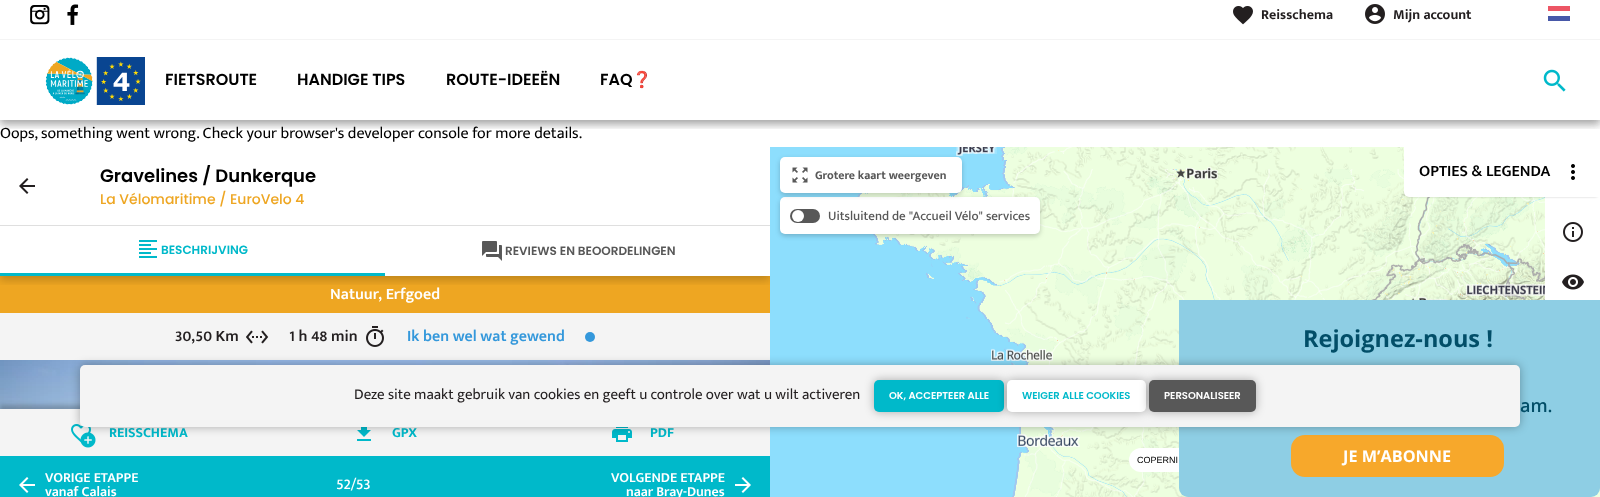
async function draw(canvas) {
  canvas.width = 1600
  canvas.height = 497
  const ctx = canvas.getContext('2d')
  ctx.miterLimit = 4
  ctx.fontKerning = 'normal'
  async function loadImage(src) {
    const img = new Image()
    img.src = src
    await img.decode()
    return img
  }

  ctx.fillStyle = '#fff'
  ctx.fillRect(0, 0, 1600, 497)
  ctx.save()
  ctx.beginPath()
  ctx.rect(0, 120, 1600, 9)
  ctx.clip()
  ctx.fillStyle = '#00000033'
  ctx.filter = 'blur(4px)'
  ctx.beginPath()
  ctx.rect(0, -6, 1600, 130)
  ctx.fill()
  ctx.filter = 'none'
  ctx.filter = 'blur(4px)'
  ctx.beginPath()
  ctx.rect(0, -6, 1600, 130)
  ctx.fill()
  ctx.filter = 'none'
  ctx.restore()
  ctx.fillStyle = '#f4f4f4'
  ctx.fillRect(0, 39, 1600, 1)
  ctx.drawImage(await loadImage('image0.png'), 30, 5, 20, 20)
  ctx.drawImage(await loadImage('image1.png'), 67, 4, 12, 21)
  ctx.drawImage(await loadImage('image2.png'), 1233, 6, 20, 19)
  ctx.font = 'bold 14px Mukta Mahee'
  ctx.fillStyle = '#231f20'
  ctx.fillText('Reisschema', 1261, 19)
  ctx.drawImage(await loadImage('image3.png'), 1365, 4, 20, 20)
  ctx.fillText('Mijn account', 1393, 19)
  ctx.drawImage(await loadImage('image4.png'), 1548, 6, 22, 15)
  ctx.drawImage(await loadImage('image5.png'), 45, 57, 100, 48)
  ctx.font = '600 16px Poppins'
  ctx.fillStyle = '#000'
  ctx.fillText('FIETSROUTE', 165, 85)
  ctx.fillText('HANDIGE TIPS', 297, 85)
  ctx.fillText('ROUTE-IDEEËN', 446, 85)
  ctx.fillText('FAQ', 600, 85)
  ctx.font = 'bold 16px Noto Color Emoji'
  ctx.fillText('❓', 632, 85)
  ctx.drawImage(await loadImage('image6.png'), 1543, 69, 23, 23)
  ctx.font = '16px Mukta Mahee'
  ctx.fillText('Oops, something went wrong. Check your browser\'s developer console for more details.', 0, 138)
  ctx.fillStyle = '#eea622'
  ctx.fillRect(0, 276, 770, 37)
  ctx.save()
  ctx.beginPath()
  ctx.rect(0, 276, 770, 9)
  ctx.clip()
  ctx.fillStyle = '#00000033'
  ctx.filter = 'blur(4px)'
  ctx.beginPath()
  ctx.rect(0, 230, 770, 50)
  ctx.fill()
  ctx.filter = 'none'
  ctx.restore()
  ctx.fillStyle = '#fff'
  ctx.fillRect(1, 223, 768, 2)
  ctx.fillStyle = '#dfdfdf'
  ctx.fillRect(0, 225, 770, 1)
  ctx.drawImage(await loadImage('image7.png'), 19, 178, 16, 16)
  ctx.font = '600 18px Poppins'
  ctx.fillStyle = '#000'
  ctx.fillText('Gravelines / Dunkerque', 100, 182)
  ctx.font = '500 14px Poppins'
  ctx.fillStyle = '#eea622'
  ctx.fillText('La Vélomaritime / EuroVelo 4', 100, 204)
  ctx.fillStyle = '#00b9ca'
  ctx.fillRect(0, 273, 385, 3)
  ctx.drawImage(await loadImage('image8.png'), 139, 240, 18, 18)
  ctx.font = '600 12px Poppins'
  ctx.fillText('BESCHRIJVING', 161, 254)
  ctx.drawImage(await loadImage('image9.png'), 482, 241, 20, 20)
  ctx.fillStyle = '#585858'
  ctx.fillText('REVIEWS EN BEOORDELINGEN', 505, 255)
  ctx.font = '600 16px Mukta Mahee'
  ctx.fillStyle = '#fff'
  ctx.fillText('Natuur, Erfgoed', 330, 299)
  ctx.fillStyle = '#f4f4f4'
  ctx.fillRect(0, 313, 770, 47)
  ctx.fillStyle = '#231f20'
  ctx.fillText('30,50 Km', 175, 341)
  ctx.drawImage(await loadImage('image10.png'), 246, 330, 23, 14)
  ctx.fillText('1 h 48 min', 289, 341)
  ctx.drawImage(await loadImage('image11.png'), 366, 326, 18, 21)
  ctx.fillStyle = '#3498db'
  ctx.fillText('Ik ben wel wat gewend', 407, 341)
  ctx.beginPath()
  ctx.arc(590, 337, 5, 0, 2 * Math.PI)
  ctx.fill()
  ctx.drawImage(await loadImage('image12.png'), 0, 360, 770, 49)
  ctx.fillStyle = '#00000033'
  ctx.filter = 'blur(2px)'
  ctx.beginPath()
  ctx.rect(0, 405, 770, 47)
  ctx.fill()
  ctx.filter = 'none'
  ctx.fillStyle = '#f4f4f4'
  ctx.fillRect(0, 409, 770, 47)
  ctx.drawImage(await loadImage('image13.png'), 71, 424, 20, 19)
  ctx.font = 'bold 14px Mukta Mahee'
  ctx.fillStyle = '#00b9ca'
  ctx.fillText('REISSCHEMA', 109, 437)
  ctx.drawImage(await loadImage('image14.png'), 80, 432, 16, 16)
  ctx.drawImage(await loadImage('image15.png'), 357, 427, 14, 14)
  ctx.fillText('GPX', 392, 437)
  ctx.drawImage(await loadImage('image16.png'), 612, 427, 20, 15)
  ctx.fillText('PDF', 650, 437)
  ctx.fillRect(0, 456, 770, 41)
  ctx.drawImage(await loadImage('image17.png'), 19, 477, 16, 16)
  ctx.font = '600 14px Mukta Mahee'
  ctx.fillStyle = '#fff'
  ctx.fillText('VORIGE ETAPPE', 45, 482)
  ctx.fillText('vanaf Calais', 45, 496)
  ctx.font = '500 16px Mukta Mahee'
  ctx.fillText('52/53', 336, 489)
  ctx.font = '600 14px Mukta Mahee'
  ctx.fillText('VOLGENDE ETAPPE', 611, 482)
  ctx.drawImage(await loadImage('image18.png'), 735, 477, 16, 16)
  ctx.fillText('naar Bray-Dunes', 626, 496)
  ctx.drawImage(await loadImage('image23.png'), 770, 147, 830, 350)
  ctx.fillStyle = '#00000033'
  ctx.filter = 'blur(2.5px)'
  ctx.beginPath()
  ctx.roundRect(780, 199, 260, 37, 5)
  ctx.fill()
  ctx.filter = 'none'
  ctx.fillStyle = '#fff'
  ctx.beginPath()
  ctx.roundRect(780, 197, 260, 37, 5)
  ctx.fill()
  ctx.fillStyle = '#00000033'
  ctx.filter = 'blur(2.5px)'
  ctx.beginPath()
  ctx.roundRect(780, 159, 182, 36, 5)
  ctx.fill()
  ctx.filter = 'none'
  ctx.fillStyle = '#fff'
  ctx.beginPath()
  ctx.roundRect(780, 157, 182, 36, 5)
  ctx.fill()
  ctx.drawImage(await loadImage('image19.png'), 792, 167, 16, 16)
  ctx.font = 'bold 12px Mukta Mahee'
  ctx.fillStyle = '#585858'
  ctx.fillText('Grotere kaart weergeven', 815, 179)
  ctx.fillStyle = '#fff'
  ctx.fillRect(1545, 197, 55, 103)
  ctx.fillStyle = '#00000033'
  ctx.filter = 'blur(1px)'
  ctx.beginPath()
  ctx.roundRect(1406, 151, 192, 46, 3)
  ctx.fill()
  ctx.filter = 'none'
  ctx.fillStyle = '#fff'
  ctx.beginPath()
  ctx.roundRect(1404, 147, 196, 50, [0, 0, 0, 5])
  ctx.fill()
  ctx.font = '600 16px Mukta Mahee'
  ctx.fillStyle = '#000'
  ctx.fillText('OPTIES & LEGENDA', 1419, 176)
  ctx.drawImage(await loadImage('image20.png'), 1571, 164, 4, 16)
  ctx.fillStyle = '#585858'
  ctx.beginPath()
  ctx.roundRect(790, 209, 30, 14, 7)
  ctx.fill()
  ctx.fillStyle = '#fff'
  ctx.beginPath()
  ctx.arc(798, 216, 6, 0, 2 * Math.PI)
  ctx.fill()
  ctx.font = '500 13px Mukta Mahee'
  ctx.fillStyle = '#585858'
  ctx.fillText('Uitsluitend de "Accueil Vélo" services', 828, 220)
  ctx.drawImage(await loadImage('image21.png'), 1563, 222, 20, 20)
  ctx.drawImage(await loadImage('image22.png'), 1562, 274, 22, 16)
  ctx.fillStyle = '#fff'
  ctx.beginPath()
  ctx.roundRect(1129, 448, 461, 24, 12)
  ctx.fill()
  ctx.font = '9px Liberation Sans'
  ctx.fillStyle = '#000'
  ctx.fillText('COPERNI', 1137, 463)
  ctx.fillStyle = '#8ecee4'
  ctx.beginPath()
  ctx.roundRect(1179, 300, 421, 197, [0, 0, 9, 9])
  ctx.fill()
  ctx.fillStyle = '#f7a82b'
  ctx.beginPath()
  ctx.roundRect(1291, 435, 213, 42, 14)
  ctx.fill()
  ctx.fillStyle = '#0000004d'
  ctx.filter = 'blur(5px)'
  ctx.beginPath()
  ctx.roundRect(80, 365, 1440, 62, 5)
  ctx.fill()
  ctx.filter = 'none'
  ctx.fillStyle = '#f4f4f4'
  ctx.beginPath()
  ctx.roundRect(80, 365, 1440, 62, 5)
  ctx.fill()
  ctx.font = '15px Mukta Mahee'
  ctx.fillStyle = '#231f20'
  ctx.fillText('Deze site maakt gebruik van cookies en geeft u controle over wat u wilt activeren', 354, 399)
  ctx.fillStyle = '#0000004d'
  ctx.filter = 'blur(5px)'
  ctx.beginPath()
  ctx.roundRect(874, 380, 130, 32, 5)
  ctx.fill()
  ctx.filter = 'none'
  ctx.fillStyle = '#00b9ca'
  ctx.beginPath()
  ctx.roundRect(874, 380, 130, 32, 5)
  ctx.fill()
  ctx.font = '600 10px Poppins'
  ctx.fillStyle = '#fff'
  ctx.fillText('OK, ACCEPTEER ALLE', 889, 399)
  ctx.fillStyle = '#0000004d'
  ctx.filter = 'blur(5px)'
  ctx.beginPath()
  ctx.roundRect(1007, 380, 139, 32, 5)
  ctx.fill()
  ctx.filter = 'none'
  ctx.fillStyle = '#fff'
  ctx.beginPath()
  ctx.roundRect(1007, 380, 139, 32, 5)
  ctx.fill()
  ctx.fillStyle = '#00b9ca'
  ctx.fillText('WEIGER ALLE COOKIES', 1022, 399)
  ctx.fillStyle = '#0000004d'
  ctx.filter = 'blur(5px)'
  ctx.beginPath()
  ctx.roundRect(1149, 380, 107, 32, 5)
  ctx.fill()
  ctx.filter = 'none'
  ctx.fillStyle = '#585858'
  ctx.beginPath()
  ctx.roundRect(1149, 380, 107, 32, 5)
  ctx.fill()
  ctx.fillStyle = '#fff'
  ctx.fillText('PERSONALISEER', 1164, 399)
  ctx.font = 'bold 23.5px Open Sans'
  ctx.fillStyle = '#024e68'
  ctx.fillText('Rejoignez-nous !', 1303, 347)
  ctx.font = '600 18px Open Sans'
  ctx.fillText('am.', 1520, 412)
  ctx.font = 'bold 16.25px Open Sans'
  ctx.fillStyle = '#fff'
  ctx.fillText('JE M’ABONNE', 1343, 462)
}

draw(document.querySelector('canvas'))
